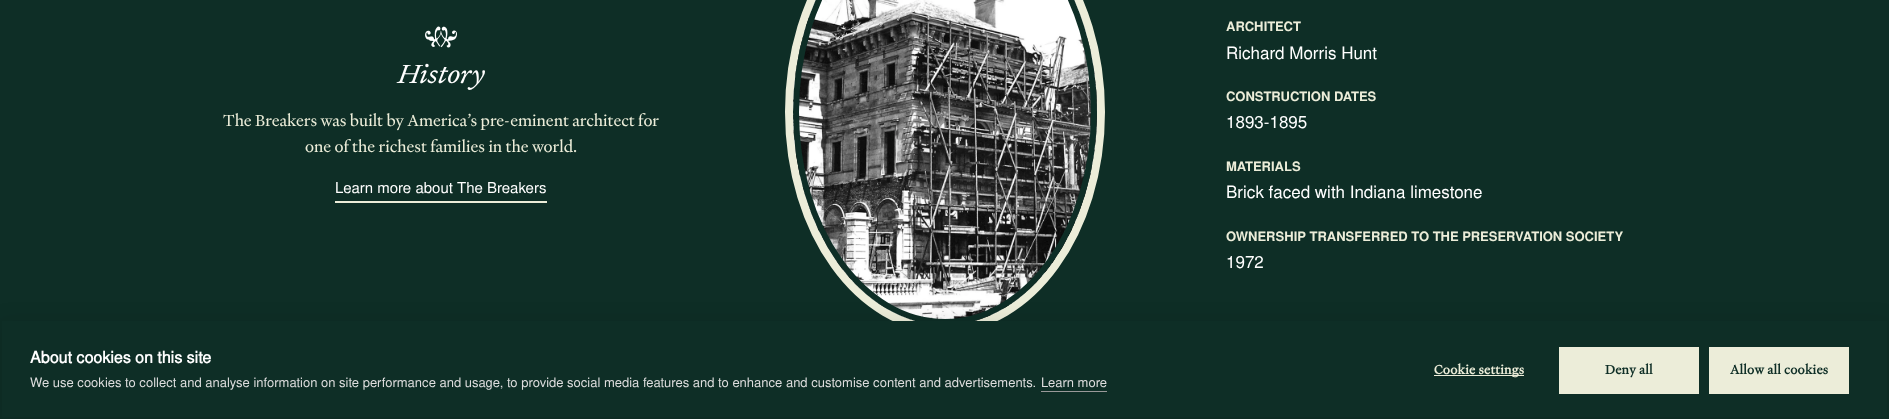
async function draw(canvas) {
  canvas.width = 1889
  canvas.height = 419
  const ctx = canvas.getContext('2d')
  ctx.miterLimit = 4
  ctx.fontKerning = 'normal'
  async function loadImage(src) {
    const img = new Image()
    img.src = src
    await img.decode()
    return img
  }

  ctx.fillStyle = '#0e2e26'
  ctx.fillRect(0, 0, 1889, 419)
  ctx.drawImage(await loadImage('image0.png'), 425, 26, 32, 22)
  ctx.letterSpacing = '-0.25px'
  ctx.font = '28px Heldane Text'
  ctx.fillStyle = '#fff'
  ctx.fillText('History', 398, 83)
  ctx.letterSpacing = '0px'
  ctx.font = '17px "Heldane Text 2"'
  ctx.fillStyle = '#ecedd9'
  ctx.fillText('The Breakers was built by America’s pre-eminent architect for', 223, 126)
  ctx.fillText('one of the richest families in the world.', 305, 152)
  ctx.font = '15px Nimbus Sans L'
  ctx.fillStyle = '#fff'
  ctx.fillText('Learn more about The Breakers', 335, 193)
  ctx.fillStyle = '#ecedd9'
  ctx.fillRect(335, 201, 212, 2)
  ctx.beginPath()
  ctx.moveTo(945, -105)
  ctx.bezierCurveTo(1031, -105, 1101, -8, 1101, 112)
  ctx.bezierCurveTo(1101, 232, 1031, 329, 945, 329)
  ctx.bezierCurveTo(859, 329, 789, 232, 789, 112)
  ctx.bezierCurveTo(789, -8, 859, -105, 945, -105)
  ctx.closePath()
  ctx.strokeStyle = '#ecedd9'
  ctx.lineWidth = 8
  ctx.stroke()
  ctx.drawImage(await loadImage('image1.png'), 793, 0, 304, 321)
  ctx.save()
  ctx.beginPath()
  ctx.moveTo(945, -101)
  ctx.bezierCurveTo(1029, -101, 1097, -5.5, 1097, 112)
  ctx.bezierCurveTo(1097, 229.5, 1029, 325, 945, 325)
  ctx.bezierCurveTo(861, 325, 793, 229.5, 793, 112)
  ctx.bezierCurveTo(793, -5.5, 861, -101, 945, -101)
  ctx.closePath()
  ctx.clip()
  ctx.beginPath()
  ctx.moveTo(945, -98)
  ctx.bezierCurveTo(1027.5, -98, 1094, -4, 1094, 112)
  ctx.bezierCurveTo(1094, 228, 1027.5, 322, 945, 322)
  ctx.bezierCurveTo(862.5, 322, 796, 228, 796, 112)
  ctx.bezierCurveTo(796, -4, 862.5, -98, 945, -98)
  ctx.closePath()
  ctx.strokeStyle = '#0e2e26'
  ctx.lineWidth = 6
  ctx.stroke()
  ctx.restore()
  ctx.font = 'bold 13px Nimbus Sans L'
  ctx.fillText('ARCHITECT', 1226, 31)
  ctx.font = '17px Nimbus Sans L'
  ctx.fillStyle = '#fff'
  ctx.fillText('Richard Morris Hunt', 1226, 59)
  ctx.font = 'bold 13px Nimbus Sans L'
  ctx.fillStyle = '#ecedd9'
  ctx.fillText('CONSTRUCTION DATES', 1226, 101)
  ctx.font = '17px Nimbus Sans L'
  ctx.fillStyle = '#fff'
  ctx.fillText('1893-1895', 1226, 128)
  ctx.font = 'bold 13px Nimbus Sans L'
  ctx.fillStyle = '#ecedd9'
  ctx.fillText('MATERIALS', 1226, 171)
  ctx.font = '17px Nimbus Sans L'
  ctx.fillStyle = '#fff'
  ctx.fillText('Brick faced with Indiana limestone', 1226, 198)
  ctx.font = 'bold 13px Nimbus Sans L'
  ctx.fillStyle = '#ecedd9'
  ctx.fillText('OWNERSHIP TRANSFERRED TO THE PRESERVATION SOCIETY', 1226, 241)
  ctx.font = '17px Nimbus Sans L'
  ctx.fillStyle = '#fff'
  ctx.fillText('1972', 1226, 268)
  ctx.fillStyle = '#0000001a'
  ctx.filter = 'blur(10px)'
  ctx.beginPath()
  ctx.rect(0, 321, 1889, 98)
  ctx.fill()
  ctx.filter = 'none'
  ctx.fillStyle = '#0e2e26'
  ctx.fillRect(2, 321, 1885, 96)
  ctx.font = 'bold 16px "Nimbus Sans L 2"'
  ctx.fillStyle = '#fff'
  ctx.fillText('About cookies on this site', 30, 363)
  ctx.font = '13px Nimbus Sans L'
  ctx.fillStyle = '#ddd'
  ctx.fillText('We use cookies to collect and analyse information on site performance and usage, to provide social media features and to enhance and customise content and advertisements.', 30, 387)
  ctx.fillText('Learn more', 1041, 387)
  ctx.fillStyle = '#999'
  ctx.fillRect(1041, 391, 66, 1)
  ctx.fillStyle = '#ecedd9'
  ctx.fillRect(1434, 375, 90, 1)
  ctx.letterSpacing = '0.25px'
  ctx.font = 'bold 13.5px Heldane Text'
  ctx.fillText('Cookie settings', 1434, 374)
  ctx.fillRect(1559, 347, 140, 47)
  ctx.fillStyle = '#0e2e26'
  ctx.fillText('Deny all', 1605, 374)
  ctx.fillStyle = '#ecedd9'
  ctx.fillRect(1709, 347, 140, 47)
  ctx.fillStyle = '#0e2e26'
  ctx.fillText('Allow all cookies', 1730, 374)
}

draw(document.querySelector('canvas'))
